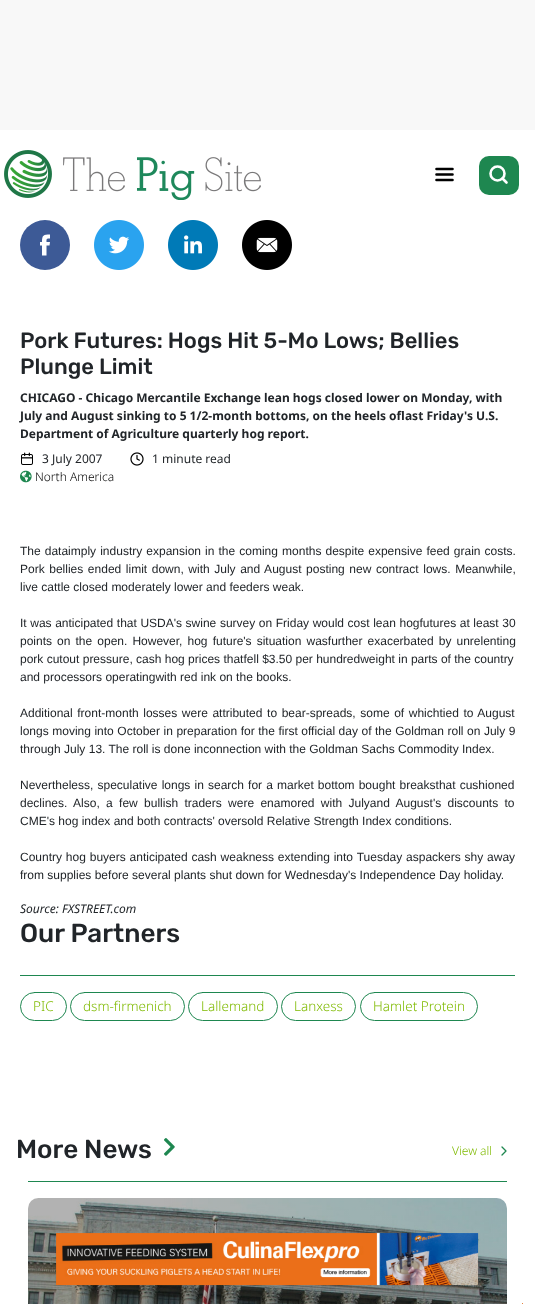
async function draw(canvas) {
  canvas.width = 535
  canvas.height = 1304
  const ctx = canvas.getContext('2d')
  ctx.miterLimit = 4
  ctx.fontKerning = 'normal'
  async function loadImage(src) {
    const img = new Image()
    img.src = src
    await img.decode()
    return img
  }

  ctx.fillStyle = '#fff'
  ctx.fillRect(0, 0, 535, 1304)
  ctx.fillStyle = '#f8f8f8'
  ctx.fillRect(0, 0, 535, 130)
  ctx.drawImage(await loadImage('image0.png'), 4, 150, 257, 50)
  ctx.beginPath()
  ctx.moveTo(436.5, 174.5)
  ctx.lineTo(452.5, 174.5)
  ctx.moveTo(436.5, 169)
  ctx.lineTo(452.5, 169)
  ctx.moveTo(436.5, 180)
  ctx.lineTo(452.5, 180)
  ctx.strokeStyle = '#000'
  ctx.lineWidth = 2.6
  ctx.lineCap = 'round'
  ctx.lineJoin = 'round'
  ctx.stroke()
  ctx.fillStyle = '#1e8750'
  ctx.beginPath()
  ctx.roundRect(479, 156, 40, 39, 10)
  ctx.fill()
  ctx.beginPath()
  ctx.arc(497.5, 173.5, 7, 0, 2 * Math.PI)
  ctx.strokeStyle = '#fff'
  ctx.stroke()
  ctx.beginPath()
  ctx.moveTo(506.5, 182.5)
  ctx.lineTo(502.5, 178.5)
  ctx.stroke()
  ctx.fillStyle = '#3d5a96'
  ctx.beginPath()
  ctx.arc(45, 245, 25, 0, 2 * Math.PI)
  ctx.fill()
  ctx.fillStyle = '#fff'
  ctx.beginPath()
  ctx.moveTo(46.5, 255.5)
  ctx.lineTo(42, 255.5)
  ctx.lineTo(42, 245.5)
  ctx.lineTo(40, 245.5)
  ctx.lineTo(40, 242)
  ctx.lineTo(42, 242)
  ctx.bezierCurveTo(42, 235, 43.5, 234.5, 50, 234.5)
  ctx.lineTo(50, 238.5)
  ctx.bezierCurveTo(46.5, 238.5, 46.5, 238.5, 46.5, 242)
  ctx.lineTo(50, 242)
  ctx.lineTo(49.5, 245.5)
  ctx.lineTo(46.5, 245.5)
  ctx.closePath()
  ctx.fill()
  ctx.drawImage(await loadImage('image1.png'), 94, 220, 50, 50)
  ctx.drawImage(await loadImage('image2.png'), 168, 220, 50, 50)
  ctx.drawImage(await loadImage('image3.png'), 242, 220, 50, 50)
  ctx.font = '500 22px Rubik'
  ctx.fillStyle = '#212529'
  ctx.fillText('Pork Futures: Hogs Hit 5-Mo Lows; Bellies', 20, 348)
  ctx.fillText('Plunge Limit', 20, 374)
  ctx.font = 'bold 12px Noto Sans'
  ctx.fillText('CHICAGO - Chicago Mercantile Exchange lean hogs closed lower on Monday, with', 20, 402)
  ctx.fillText('July and August sinking to 5 1/2-month bottoms, on the heels oflast Friday\'s U.S.', 20, 420)
  ctx.fillText('Department of Agriculture quarterly hog report.', 20, 438)
  ctx.drawImage(await loadImage('image4.png'), 21, 452, 12, 13)
  ctx.font = '12px Noto Sans'
  ctx.fillText('3 July 2007', 42, 463)
  ctx.drawImage(await loadImage('image5.png'), 130, 452, 14, 14)
  ctx.fillText('1 minute read', 152, 463)
  ctx.drawImage(await loadImage('image6.png'), 20, 470, 12, 13)
  ctx.font = '300 12px Noto Sans'
  ctx.fillStyle = '#000'
  ctx.fillText('North America', 35, 481)
  ctx.wordSpacing = '0.75px'
  ctx.font = '12px Liberation Sans'
  ctx.fillStyle = '#212529'
  ctx.fillText('The dataimply industry expansion in the coming months despite expensive feed grain costs.', 20, 555)
  ctx.wordSpacing = '1.25px'
  ctx.fillText('Pork bellies ended limit down, with July and August posting new contract lows. Meanwhile,', 20, 573)
  ctx.wordSpacing = '0px'
  ctx.fillText('live cattle closed moderately lower and feeders weak.', 20, 591)
  ctx.wordSpacing = '0.25px'
  ctx.fillText('It was anticipated that USDA\'s swine survey on Friday would cost lean hogfutures at least 30', 20, 627)
  ctx.wordSpacing = '1.75px'
  ctx.fillText('points on the open. However, hog future\'s situation wasfurther exacerbated by unrelenting', 20, 645)
  ctx.wordSpacing = '0px'
  ctx.fillText('pork cutout pressure, cash hog prices thatfell $3.50 per hundredweight in parts of the country', 20, 663)
  ctx.fillText('and processors operatingwith red ink on the books.', 20, 681)
  ctx.wordSpacing = '1.25px'
  ctx.fillText('Additional front-month losses were attributed to bear-spreads, some of whichtied to August', 20, 717)
  ctx.wordSpacing = '0.2px'
  ctx.fillText('longs moving into October in preparation for the first official day of the Goldman roll on July 9', 20, 735)
  ctx.wordSpacing = '0px'
  ctx.fillText('through July 13. The roll is done inconnection with the Goldman Sachs Commodity Index.', 20, 753)
  ctx.wordSpacing = '0.8px'
  ctx.fillText('Nevertheless, speculative longs in search for a market bottom bought breaksthat cushioned', 20, 789)
  ctx.wordSpacing = '3px'
  ctx.fillText('declines. Also, a few bullish traders were enamored with Julyand August\'s discounts to', 20, 807)
  ctx.wordSpacing = '0px'
  ctx.fillText('CME\'s hog index and both contracts\' oversold Relative Strength Index conditions.', 20, 825)
  ctx.wordSpacing = '0.5px'
  ctx.fillText('Country hog buyers anticipated cash weakness extending into Tuesday aspackers shy away', 20, 861)
  ctx.wordSpacing = '0px'
  ctx.fillText('from supplies before several plants shut down for Wednesday\'s Independence Day holiday.', 20, 879)
  ctx.font = 'italic 12px Noto Sans'
  ctx.fillText('Source: FXSTREET.com', 20, 913)
  ctx.font = '500 26px Rubik'
  ctx.fillText('Our Partners', 20, 942)
  ctx.fillStyle = '#1e8750'
  ctx.fillRect(20, 975, 495, 1)
  ctx.beginPath()
  ctx.roundRect(20.5, 992.5, 46, 28, 14)
  ctx.strokeStyle = '#1e8750'
  ctx.lineWidth = 1
  ctx.lineJoin = 'miter'
  ctx.stroke()
  ctx.font = '300 13.5px Noto Sans'
  ctx.fillStyle = '#7fba00'
  ctx.fillText('PIC', 33, 1011)
  ctx.beginPath()
  ctx.roundRect(70.5, 992.5, 114, 28, 14)
  ctx.stroke()
  ctx.fillText('dsm-firmenich', 83, 1011)
  ctx.beginPath()
  ctx.roundRect(188.5, 992.5, 89, 28, 14)
  ctx.stroke()
  ctx.fillText('Lallemand', 201, 1011)
  ctx.beginPath()
  ctx.roundRect(281.5, 992.5, 74, 28, 14)
  ctx.stroke()
  ctx.fillText('Lanxess', 294, 1011)
  ctx.beginPath()
  ctx.roundRect(360.5, 992.5, 117, 28, 14)
  ctx.stroke()
  ctx.fillText('Hamlet Protein', 373, 1011)
  ctx.font = '500 26px Rubik'
  ctx.fillStyle = '#212529'
  ctx.fillText('More News', 16, 1158)
  ctx.drawImage(await loadImage('image7.png'), 164, 1138, 11, 18)
  ctx.font = '300 12px Noto Sans'
  ctx.fillStyle = '#7fba00'
  ctx.fillText('View all', 452, 1155)
  ctx.beginPath()
  ctx.moveTo(502, 1155)
  ctx.lineTo(506, 1151)
  ctx.lineTo(502, 1147)
  ctx.lineWidth = 1.3
  ctx.lineJoin = 'round'
  ctx.stroke()
  ctx.fillStyle = '#1e8750'
  ctx.fillRect(28, 1181, 479, 1)
  ctx.drawImage(await loadImage('image8.png'), 28, 1198, 479, 106)
  ctx.drawImage(await loadImage('image9.png'), 56, 1233, 423, 53)
  ctx.fillStyle = '#e5833e'
  ctx.fillRect(522, 1303, 1, 1)
}

draw(document.querySelector('canvas'))
